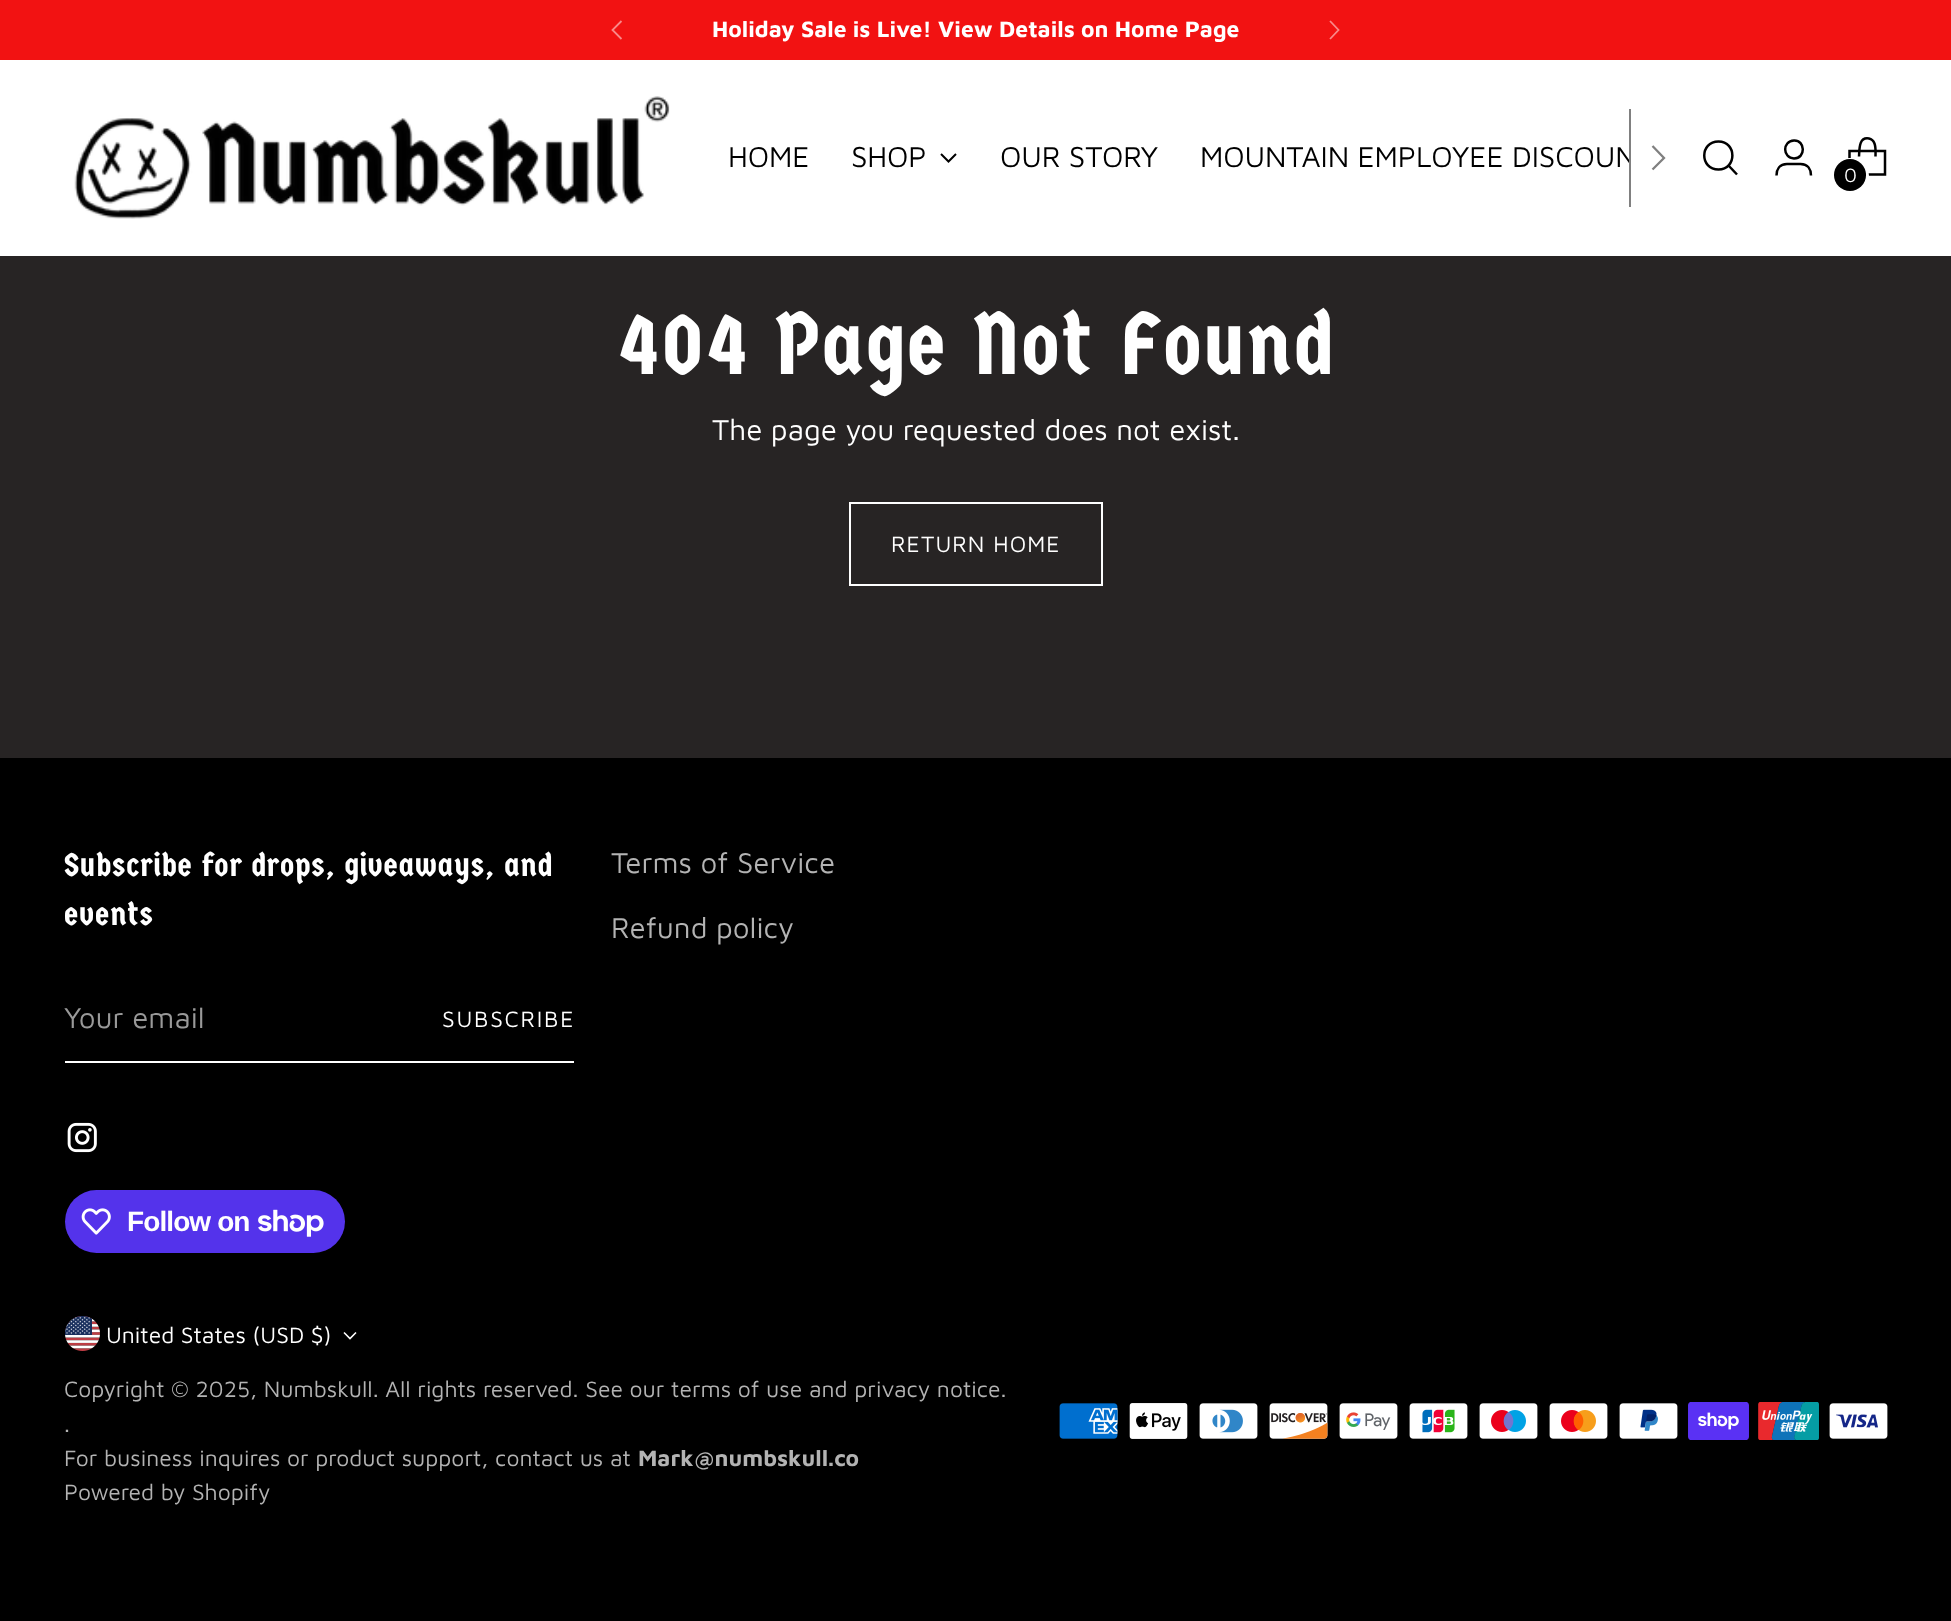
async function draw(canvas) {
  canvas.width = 1951
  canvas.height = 1621
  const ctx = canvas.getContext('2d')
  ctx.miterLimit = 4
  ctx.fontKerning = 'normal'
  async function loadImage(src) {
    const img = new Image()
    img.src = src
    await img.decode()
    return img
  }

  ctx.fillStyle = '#272424'
  ctx.fillRect(0, 0, 1951, 1621)
  ctx.fillStyle = '#f21212'
  ctx.fillRect(0, 0, 1951, 60)
  ctx.beginPath()
  ctx.moveTo(621.5, 21)
  ctx.lineTo(612.5, 30)
  ctx.lineTo(621.5, 39)
  ctx.strokeStyle = '#f98989'
  ctx.lineWidth = 1.8
  ctx.stroke()
  ctx.beginPath()
  ctx.moveTo(1330, 39)
  ctx.lineTo(1338.5, 30)
  ctx.lineTo(1330, 21)
  ctx.stroke()
  ctx.font = 'bold 22.9px Maven Pro'
  ctx.fillStyle = '#fff'
  ctx.fillText('Holiday Sale is Live! View Details on Home Page', 712, 37)
  ctx.fillRect(0, 60, 1951, 196)
  ctx.drawImage(await loadImage('image0.png'), 74, 96, 596, 123)
  ctx.letterSpacing = '-0.15px'
  ctx.font = '29.75px Maven Pro'
  ctx.fillStyle = '#000'
  ctx.fillText('HOME', 728, 167)
  ctx.fillText('SHOP', 851, 167)
  ctx.beginPath()
  ctx.moveTo(941, 154)
  ctx.lineTo(948.5, 161.5)
  ctx.lineTo(956, 154)
  ctx.strokeStyle = '#000'
  ctx.lineWidth = 2
  ctx.stroke()
  ctx.fillText('OUR STORY', 1000, 167)
  ctx.save()
  ctx.beginPath()
  ctx.rect(726, 60, 903, 196)
  ctx.clip()
  ctx.fillText('MOUNTAIN EMPLOYEE DISCOUN', 1200, 167)
  ctx.restore()
  ctx.fillStyle = '#808080'
  ctx.fillRect(1629, 109, 2, 98)
  ctx.beginPath()
  ctx.moveTo(1652.5, 169.5)
  ctx.lineTo(1664, 158)
  ctx.lineTo(1652.5, 146)
  ctx.strokeStyle = '#808080'
  ctx.lineWidth = 2.3
  ctx.stroke()
  ctx.beginPath()
  ctx.moveTo(1718.5, 169.5)
  ctx.bezierCurveTo(1737, 169.5, 1737, 141.5, 1718.5, 141.5)
  ctx.bezierCurveTo(1699.5, 141.5, 1699.5, 169.5, 1718.5, 169.5)
  ctx.closePath()
  ctx.strokeStyle = '#000'
  ctx.lineWidth = 2.5
  ctx.lineCap = 'round'
  ctx.stroke()
  ctx.beginPath()
  ctx.moveTo(1728.5, 165.5)
  ctx.lineTo(1737, 174.5)
  ctx.lineCap = 'butt'
  ctx.stroke()
  ctx.beginPath()
  ctx.moveTo(1794, 158.5)
  ctx.bezierCurveTo(1806, 158.5, 1805.5, 140, 1794, 140.5)
  ctx.bezierCurveTo(1782, 141, 1782.5, 158, 1794, 158.5)
  ctx.closePath()
  ctx.moveTo(1776.5, 175.5)
  ctx.bezierCurveTo(1776.5, 169.5, 1779.5, 164, 1787, 164)
  ctx.lineTo(1800.5, 164)
  ctx.bezierCurveTo(1808, 164, 1811, 169.5, 1811, 175.5)
  ctx.stroke()
  ctx.beginPath()
  ctx.moveTo(1875.5, 156.5)
  ctx.bezierCurveTo(1875.5, 152, 1876, 147.5, 1874.5, 143.5)
  ctx.bezierCurveTo(1873.5, 141, 1871.5, 139, 1869, 138.5)
  ctx.bezierCurveTo(1858.5, 136.5, 1859.5, 150, 1859, 156.5)
  ctx.lineJoin = 'bevel'
  ctx.stroke()
  ctx.beginPath()
  ctx.moveTo(1885, 174.5)
  ctx.lineTo(1885, 151)
  ctx.lineTo(1849.5, 151)
  ctx.lineTo(1849.5, 174.5)
  ctx.closePath()
  ctx.lineJoin = 'miter'
  ctx.stroke()
  ctx.beginPath()
  ctx.roundRect(1833.5, 159.5, 34, 33, 16.5)
  ctx.strokeStyle = '#fff'
  ctx.lineWidth = 3
  ctx.stroke()
  ctx.fillStyle = '#000'
  ctx.beginPath()
  ctx.arc(1850, 175, 16, 0, 2 * Math.PI)
  ctx.fill()
  ctx.letterSpacing = '0px'
  ctx.font = '20px Maven Pro'
  ctx.fillStyle = '#fff'
  ctx.fillText('0', 1844, 182)
  ctx.letterSpacing = '2.25px'
  ctx.font = '88.5px Germania One'
  ctx.fillText('404 Page Not Found', 617, 374)
  ctx.letterSpacing = '0px'
  ctx.font = '29.5px Maven Pro'
  ctx.fillText('The page you requested does not exist.', 712, 440)
  ctx.lineWidth = 2
  ctx.strokeRect(850, 503, 252, 82)
  ctx.letterSpacing = '1.1px'
  ctx.font = '22.9px Maven Pro'
  ctx.fillText('RETURN HOME', 891, 552)
  ctx.fillStyle = '#000'
  ctx.fillRect(0, 758, 1951, 863)
  ctx.letterSpacing = '0.8px'
  ctx.font = '32.75px Germania One'
  ctx.fillStyle = '#fff'
  ctx.fillText('Subscribe for drops, giveaways, and', 64, 876)
  ctx.fillText('events', 64, 925)
  ctx.fillRect(65, 1061, 509, 2)
  ctx.letterSpacing = '0px'
  ctx.font = '29.5px Maven Pro'
  ctx.fillStyle = '#999'
  ctx.fillText('Your email', 64, 1028)
  ctx.letterSpacing = '1.75px'
  ctx.font = '22.9px Maven Pro'
  ctx.fillStyle = '#fff'
  ctx.fillText('SUBSCRIBE', 442, 1027)
  ctx.drawImage(await loadImage('image1.png'), 67, 1122, 30, 31)
  ctx.fillStyle = '#5433eb'
  ctx.beginPath()
  ctx.roundRect(65, 1190, 280, 63, 31.5)
  ctx.fill()
  ctx.drawImage(await loadImage('image2.png'), 81, 1208, 30, 27)
  ctx.letterSpacing = '-0.9px'
  ctx.font = 'bold 28px Liberation Sans'
  ctx.fillStyle = '#fff'
  ctx.fillText('Follow on', 127, 1231)
  ctx.drawImage(await loadImage('image3.png'), 258, 1209, 66, 28)
  ctx.letterSpacing = '0px'
  ctx.font = '29.5px Maven Pro'
  ctx.fillStyle = '#b3b3b3'
  ctx.fillText('Terms of Service', 611, 873)
  ctx.fillText('Refund policy', 611, 938)
  ctx.drawImage(await loadImage('image4.png'), 65, 1316, 35, 35)
  ctx.font = '22.9px Maven Pro'
  ctx.fillStyle = '#fff'
  ctx.fillText('United States (USD $)', 106, 1343)
  ctx.beginPath()
  ctx.moveTo(344, 1332.5)
  ctx.lineTo(350, 1338.5)
  ctx.lineTo(356, 1332.5)
  ctx.lineWidth = 1.6
  ctx.stroke()
  ctx.fillStyle = '#b3b3b3'
  ctx.fillText('Copyright © 2025, Numbskull. All rights reserved. See our terms of use and privacy notice.', 64, 1397)
  ctx.fillText('.', 64, 1432)
  ctx.fillText('For business inquires or product support, contact us at', 64, 1466)
  ctx.font = 'bold 22.9px Maven Pro'
  ctx.fillText('Mark@numbskull.co', 638, 1466)
  ctx.font = '22.9px Maven Pro'
  ctx.fillText('Powered by Shopify', 64, 1500)
  ctx.drawImage(await loadImage('image5.png'), 1059, 1403, 59, 36)
  ctx.drawImage(await loadImage('image6.png'), 1129, 1403, 59, 36)
  ctx.drawImage(await loadImage('image7.png'), 1199, 1403, 59, 36)
  ctx.drawImage(await loadImage('image8.png'), 1269, 1403, 59, 36)
  ctx.drawImage(await loadImage('image9.png'), 1339, 1403, 59, 36)
  ctx.drawImage(await loadImage('image10.png'), 1409, 1403, 59, 36)
  ctx.drawImage(await loadImage('image11.png'), 1479, 1403, 59, 36)
  ctx.drawImage(await loadImage('image12.png'), 1549, 1403, 59, 36)
  ctx.drawImage(await loadImage('image13.png'), 1619, 1403, 59, 36)
  ctx.drawImage(await loadImage('image14.png'), 1688, 1402, 61, 38)
  ctx.drawImage(await loadImage('image15.png'), 1758, 1402, 61, 38)
  ctx.drawImage(await loadImage('image16.png'), 1829, 1403, 59, 36)
}

draw(document.querySelector('canvas'))
